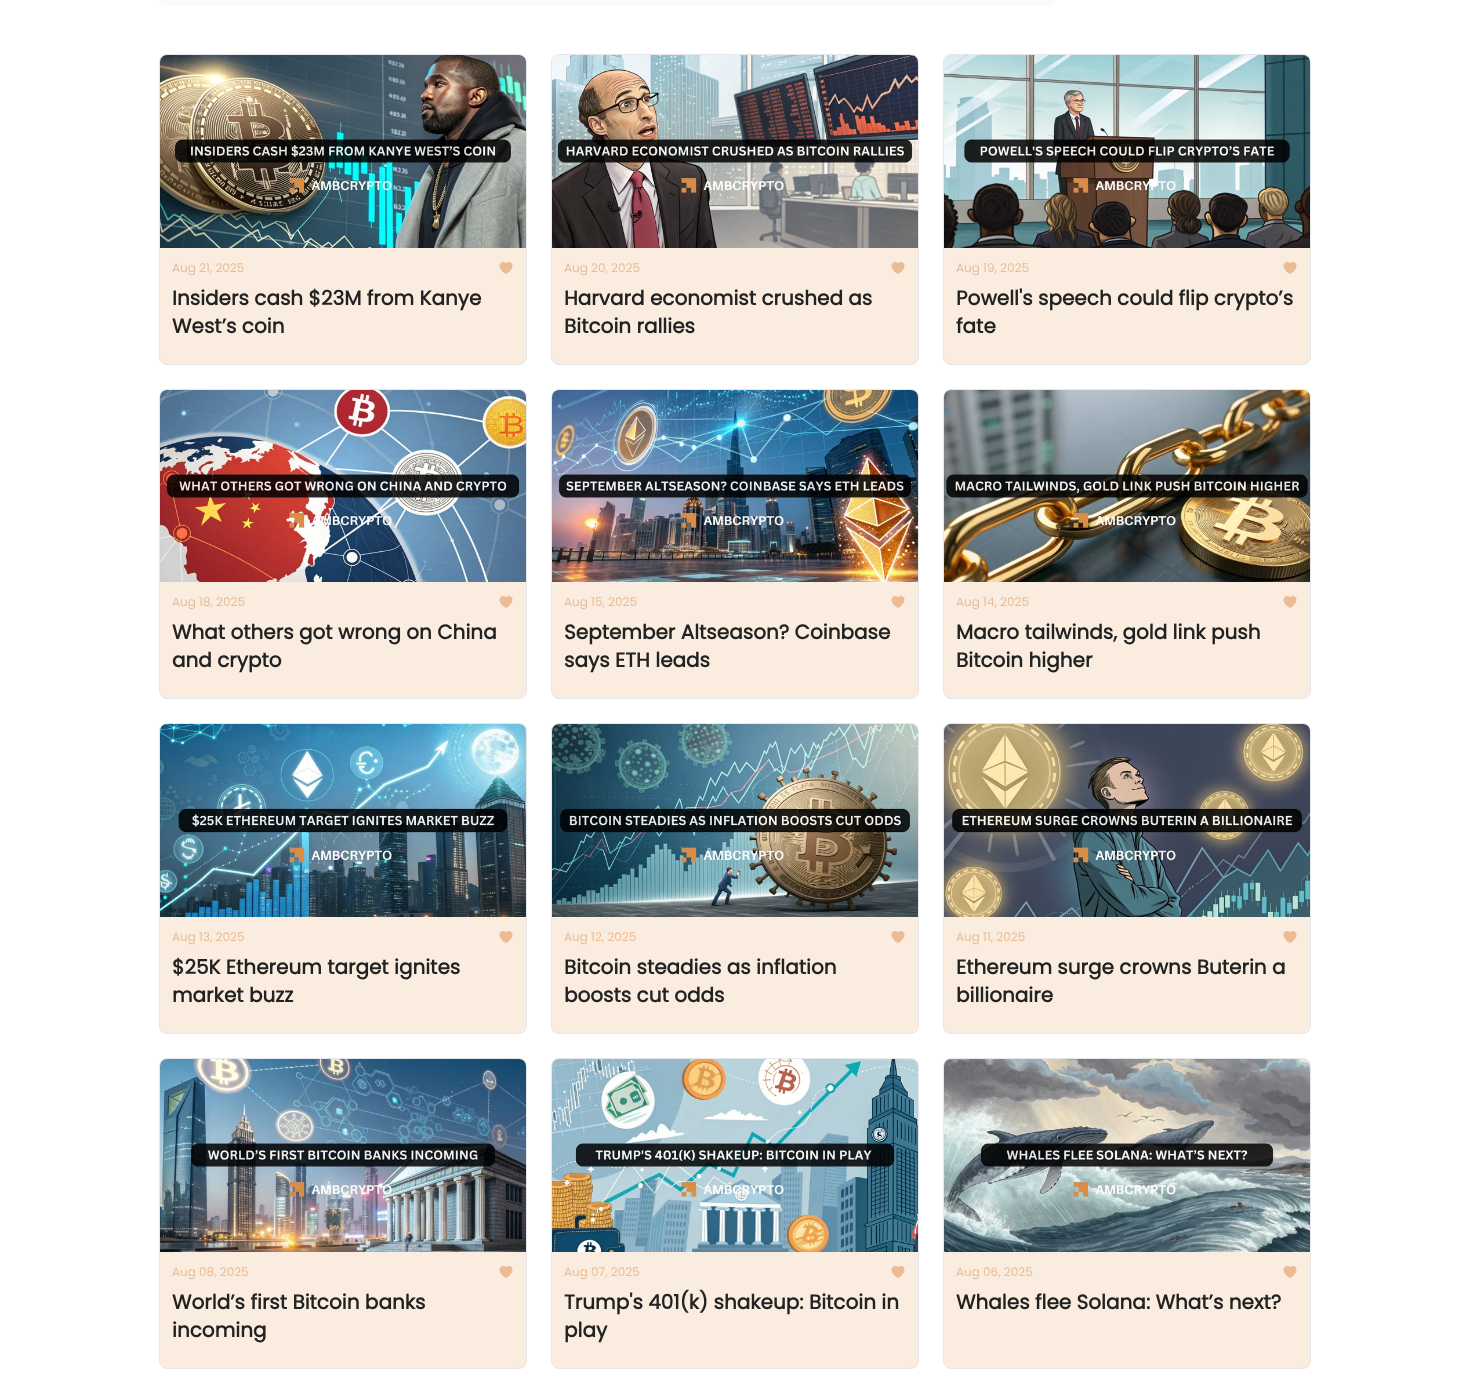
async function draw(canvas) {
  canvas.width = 1470
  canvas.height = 1390
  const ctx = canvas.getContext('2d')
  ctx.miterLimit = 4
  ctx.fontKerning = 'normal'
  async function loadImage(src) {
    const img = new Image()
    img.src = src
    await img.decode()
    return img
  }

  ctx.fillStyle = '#fff'
  ctx.fillRect(0, 0, 1470, 1390)
  ctx.fillStyle = '#f9fafb'
  ctx.beginPath()
  ctx.roundRect(159, -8, 896, 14, 8)
  ctx.fill()
  ctx.fillStyle = '#faede0'
  ctx.beginPath()
  ctx.roundRect(159.5, 54.5, 367, 310, 7.5)
  ctx.fill()
  ctx.strokeStyle = '#e5e7eb'
  ctx.stroke()
  ctx.drawImage(await loadImage('image0.png'), 160, 55, 366, 193)
  ctx.font = '12px Poppins'
  ctx.fillStyle = '#ebbc94'
  ctx.fillText('Aug 21, 2025', 172, 272)
  ctx.drawImage(await loadImage('image1.png'), 499, 262, 14, 12)
  ctx.font = 'bold 20px Poppins'
  ctx.fillStyle = '#222'
  ctx.fillText('Insiders cash $23M from Kanye', 172, 305)
  ctx.fillText('West’s coin', 172, 333)
  ctx.fillStyle = '#faede0'
  ctx.beginPath()
  ctx.roundRect(551.5, 54.5, 367, 310, 7.5)
  ctx.fill()
  ctx.stroke()
  ctx.drawImage(await loadImage('image2.png'), 552, 55, 366, 193)
  ctx.font = '12px Poppins'
  ctx.fillStyle = '#ebbc94'
  ctx.fillText('Aug 20, 2025', 564, 272)
  ctx.drawImage(await loadImage('image1.png'), 891, 262, 14, 12)
  ctx.font = 'bold 20px Poppins'
  ctx.fillStyle = '#222'
  ctx.fillText('Harvard economist crushed as', 564, 305)
  ctx.fillText('Bitcoin rallies', 564, 333)
  ctx.fillStyle = '#faede0'
  ctx.beginPath()
  ctx.roundRect(943.5, 54.5, 367, 310, 7.5)
  ctx.fill()
  ctx.stroke()
  ctx.drawImage(await loadImage('image3.png'), 944, 55, 366, 193)
  ctx.font = '12px Poppins'
  ctx.fillStyle = '#ebbc94'
  ctx.fillText('Aug 19, 2025', 956, 272)
  ctx.drawImage(await loadImage('image1.png'), 1283, 262, 14, 12)
  ctx.font = 'bold 20px Poppins'
  ctx.fillStyle = '#222'
  ctx.fillText('Powell\'s speech could flip crypto’s', 956, 305)
  ctx.fillText('fate', 956, 333)
  ctx.fillStyle = '#faede0'
  ctx.beginPath()
  ctx.roundRect(159.5, 389.5, 367, 309, 7.5)
  ctx.fill()
  ctx.stroke()
  ctx.drawImage(await loadImage('image4.png'), 160, 390, 366, 192)
  ctx.font = '12px Poppins'
  ctx.fillStyle = '#ebbc94'
  ctx.fillText('Aug 18, 2025', 172, 606)
  ctx.drawImage(await loadImage('image1.png'), 499, 596, 14, 12)
  ctx.font = 'bold 20px Poppins'
  ctx.fillStyle = '#222'
  ctx.fillText('What others got wrong on China', 172, 639)
  ctx.fillText('and crypto', 172, 667)
  ctx.fillStyle = '#faede0'
  ctx.beginPath()
  ctx.roundRect(551.5, 389.5, 367, 309, 7.5)
  ctx.fill()
  ctx.stroke()
  ctx.drawImage(await loadImage('image5.png'), 552, 390, 366, 192)
  ctx.font = '12px Poppins'
  ctx.fillStyle = '#ebbc94'
  ctx.fillText('Aug 15, 2025', 564, 606)
  ctx.drawImage(await loadImage('image1.png'), 891, 596, 14, 12)
  ctx.font = 'bold 20px Poppins'
  ctx.fillStyle = '#222'
  ctx.fillText('September Altseason? Coinbase', 564, 639)
  ctx.fillText('says ETH leads', 564, 667)
  ctx.fillStyle = '#faede0'
  ctx.beginPath()
  ctx.roundRect(943.5, 389.5, 367, 309, 7.5)
  ctx.fill()
  ctx.stroke()
  ctx.drawImage(await loadImage('image6.png'), 944, 390, 366, 192)
  ctx.font = '12px Poppins'
  ctx.fillStyle = '#ebbc94'
  ctx.fillText('Aug 14, 2025', 956, 606)
  ctx.drawImage(await loadImage('image1.png'), 1283, 596, 14, 12)
  ctx.font = 'bold 20px Poppins'
  ctx.fillStyle = '#222'
  ctx.fillText('Macro tailwinds, gold link push', 956, 639)
  ctx.fillText('Bitcoin higher', 956, 667)
  ctx.fillStyle = '#faede0'
  ctx.beginPath()
  ctx.roundRect(159.5, 723.5, 367, 310, 7.5)
  ctx.fill()
  ctx.stroke()
  ctx.drawImage(await loadImage('image7.png'), 160, 724, 366, 193)
  ctx.font = '12px Poppins'
  ctx.fillStyle = '#ebbc94'
  ctx.fillText('Aug 13, 2025', 172, 941)
  ctx.drawImage(await loadImage('image1.png'), 499, 931, 14, 12)
  ctx.font = 'bold 20px Poppins'
  ctx.fillStyle = '#222'
  ctx.fillText('$25K Ethereum target ignites', 172, 974)
  ctx.fillText('market buzz', 172, 1002)
  ctx.fillStyle = '#faede0'
  ctx.beginPath()
  ctx.roundRect(551.5, 723.5, 367, 310, 7.5)
  ctx.fill()
  ctx.stroke()
  ctx.drawImage(await loadImage('image8.png'), 552, 724, 366, 193)
  ctx.font = '12px Poppins'
  ctx.fillStyle = '#ebbc94'
  ctx.fillText('Aug 12, 2025', 564, 941)
  ctx.drawImage(await loadImage('image1.png'), 891, 931, 14, 12)
  ctx.font = 'bold 20px Poppins'
  ctx.fillStyle = '#222'
  ctx.fillText('Bitcoin steadies as inflation', 564, 974)
  ctx.fillText('boosts cut odds', 564, 1002)
  ctx.fillStyle = '#faede0'
  ctx.beginPath()
  ctx.roundRect(943.5, 723.5, 367, 310, 7.5)
  ctx.fill()
  ctx.stroke()
  ctx.drawImage(await loadImage('image9.png'), 944, 724, 366, 193)
  ctx.font = '12px Poppins'
  ctx.fillStyle = '#ebbc94'
  ctx.fillText('Aug 11, 2025', 956, 941)
  ctx.drawImage(await loadImage('image1.png'), 1283, 931, 14, 12)
  ctx.font = 'bold 20px Poppins'
  ctx.fillStyle = '#222'
  ctx.fillText('Ethereum surge crowns Buterin a', 956, 974)
  ctx.fillText('billionaire', 956, 1002)
  ctx.fillStyle = '#faede0'
  ctx.beginPath()
  ctx.roundRect(159.5, 1058.5, 367, 310, 7.5)
  ctx.fill()
  ctx.stroke()
  ctx.drawImage(await loadImage('image10.png'), 160, 1059, 366, 193)
  ctx.font = '12px Poppins'
  ctx.fillStyle = '#ebbc94'
  ctx.fillText('Aug 08, 2025', 172, 1276)
  ctx.drawImage(await loadImage('image1.png'), 499, 1266, 14, 12)
  ctx.font = 'bold 20px Poppins'
  ctx.fillStyle = '#222'
  ctx.fillText('World’s first Bitcoin banks', 172, 1309)
  ctx.fillText('incoming', 172, 1337)
  ctx.fillStyle = '#faede0'
  ctx.beginPath()
  ctx.roundRect(551.5, 1058.5, 367, 310, 7.5)
  ctx.fill()
  ctx.stroke()
  ctx.drawImage(await loadImage('image11.png'), 552, 1059, 366, 193)
  ctx.font = '12px Poppins'
  ctx.fillStyle = '#ebbc94'
  ctx.fillText('Aug 07, 2025', 564, 1276)
  ctx.drawImage(await loadImage('image1.png'), 891, 1266, 14, 12)
  ctx.font = 'bold 20px Poppins'
  ctx.fillStyle = '#222'
  ctx.fillText('Trump\'s 401(k) shakeup: Bitcoin in', 564, 1309)
  ctx.fillText('play', 564, 1337)
  ctx.fillStyle = '#faede0'
  ctx.beginPath()
  ctx.roundRect(943.5, 1058.5, 367, 310, 7.5)
  ctx.fill()
  ctx.stroke()
  ctx.drawImage(await loadImage('image12.png'), 944, 1059, 366, 193)
  ctx.font = '12px Poppins'
  ctx.fillStyle = '#ebbc94'
  ctx.fillText('Aug 06, 2025', 956, 1276)
  ctx.drawImage(await loadImage('image1.png'), 1283, 1266, 14, 12)
  ctx.font = 'bold 20px Poppins'
  ctx.fillStyle = '#222'
  ctx.fillText('Whales flee Solana: What’s next?', 956, 1309)
}

draw(document.querySelector('canvas'))
